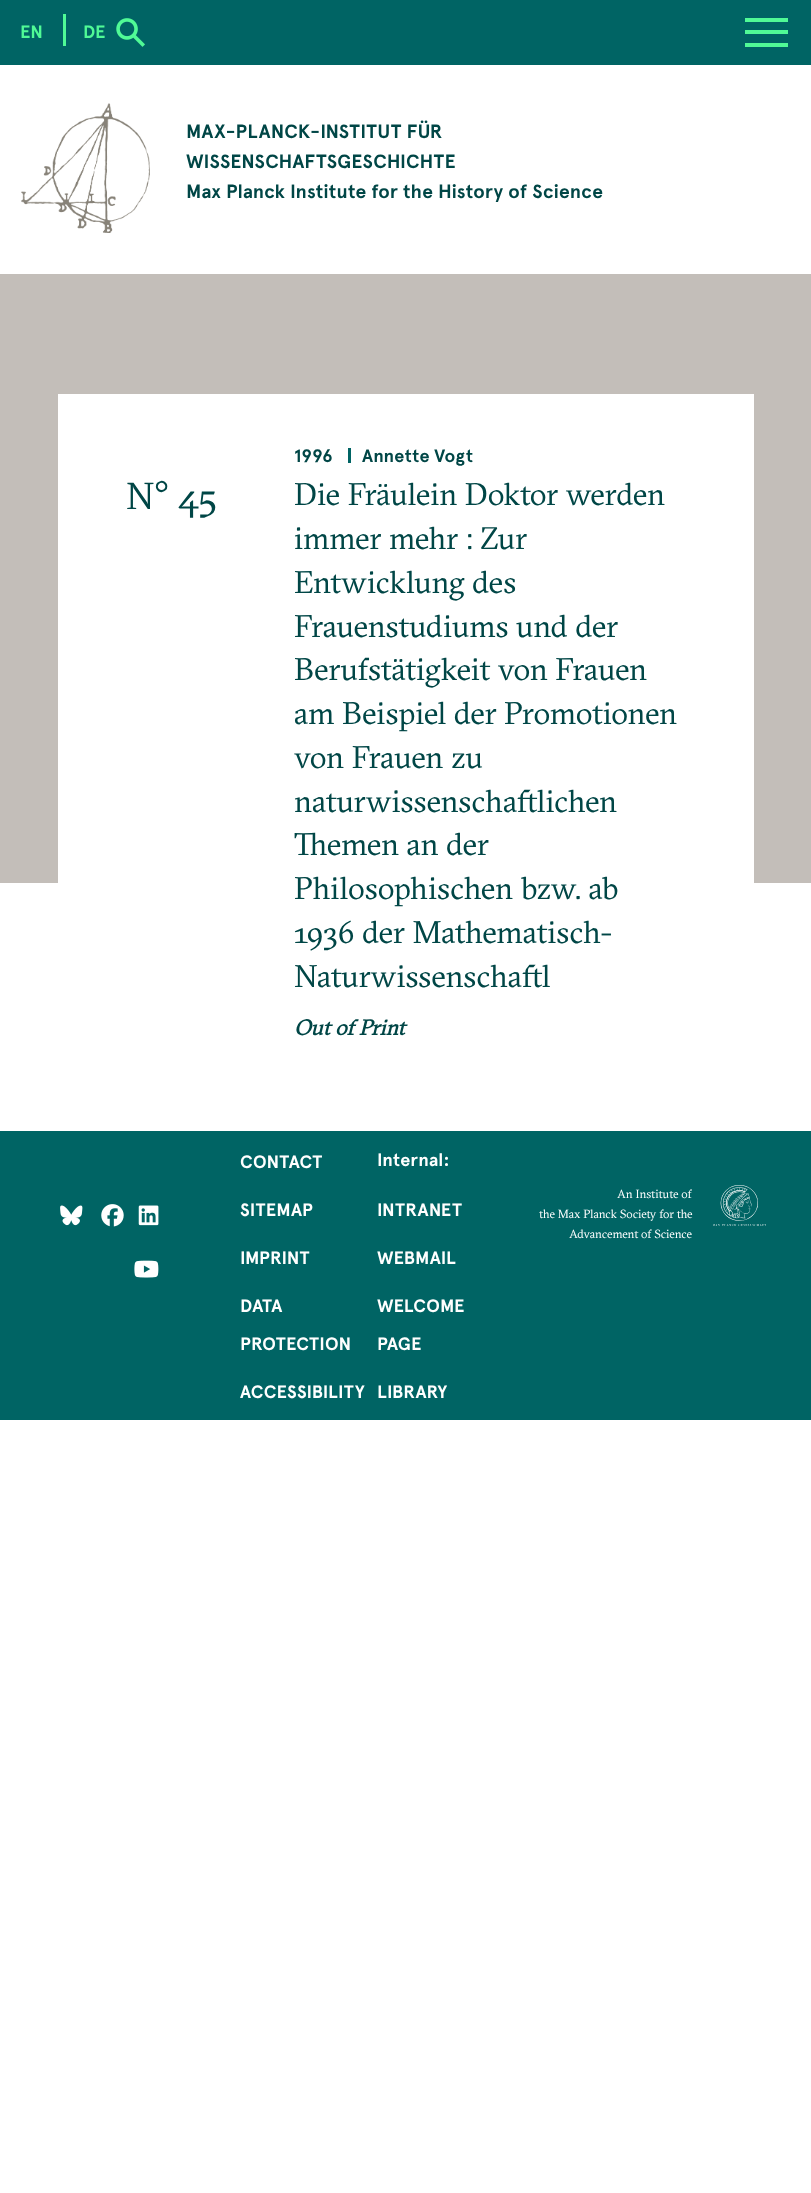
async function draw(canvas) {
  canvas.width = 811
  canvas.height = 2193
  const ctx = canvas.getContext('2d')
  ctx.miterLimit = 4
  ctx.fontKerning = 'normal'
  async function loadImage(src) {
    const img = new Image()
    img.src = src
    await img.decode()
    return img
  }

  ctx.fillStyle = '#fff'
  ctx.fillRect(0, 0, 811, 2193)
  ctx.fillStyle = '#006464'
  ctx.fillRect(0, 0, 811, 65)
  ctx.fillStyle = '#50fa96'
  ctx.fillRect(63, 14, 3, 32)
  ctx.letterSpacing = '0.2px'
  ctx.font = 'bold 18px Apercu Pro'
  ctx.fillText('EN', 20, 38)
  ctx.fillText('DE', 83, 38)
  ctx.drawImage(await loadImage('image0.png'), 116, 18, 29, 29)
  ctx.drawImage(await loadImage('image1.png'), 21, 103, 129, 130)
  ctx.font = 'bold 19.2px Apercu Pro'
  ctx.fillStyle = '#004646'
  ctx.fillText('MAX-PLANCK-INSTITUT FÜR', 186, 138)
  ctx.fillText('WISSENSCHAFTSGESCHICHTE', 186, 168)
  ctx.fillText('Max Planck Institute for the History of Science', 186, 198)
  ctx.fillStyle = '#c3beb9'
  ctx.fillRect(0, 274, 811, 609)
  ctx.fillStyle = '#fff'
  ctx.fillRect(58, 394, 696, 489)
  ctx.letterSpacing = '0px'
  ctx.font = '37.5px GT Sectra'
  ctx.fillStyle = '#004646'
  ctx.fillText('N° 45', 126, 509)
  ctx.letterSpacing = '0.2px'
  ctx.font = 'bold 18px Apercu Pro'
  ctx.fillText('1996', 294, 462)
  ctx.fillStyle = '#006464'
  ctx.fillRect(348, 448, 3, 15)
  ctx.fillStyle = '#004646'
  ctx.fillText('Annette Vogt', 362, 462)
  ctx.letterSpacing = '0px'
  ctx.font = '31.25px GT Sectra'
  ctx.fillText('Die Fräulein Doktor werden', 294, 505)
  ctx.fillText('immer mehr : Zur', 294, 549)
  ctx.fillText('Entwicklung des', 294, 593)
  ctx.fillText('Frauenstudiums und der', 294, 637)
  ctx.fillText('Berufstätigkeit von Frauen', 294, 680)
  ctx.fillText('am Beispiel der Promotionen', 294, 724)
  ctx.fillText('von Frauen zu', 294, 768)
  ctx.fillText('naturwissenschaftlichen', 294, 812)
  ctx.fillText('Themen an der', 294, 855)
  ctx.fillText('Philosophischen bzw. ab', 294, 899)
  ctx.fillText('1936 der Mathematisch-', 294, 943)
  ctx.fillText('Naturwissenschaftl', 294, 987)
  ctx.font = 'italic bold 21.5px GT Sectra'
  ctx.fillText('Out of Print', 294, 1035)
  ctx.fillStyle = '#006464'
  ctx.fillRect(0, 1131, 811, 289)
  ctx.drawImage(await loadImage('image2.png'), 60, 1205, 23, 21)
  ctx.drawImage(await loadImage('image3.png'), 101, 1204, 23, 23)
  ctx.drawImage(await loadImage('image4.png'), 138, 1205, 21, 21)
  ctx.drawImage(await loadImage('image5.png'), 134, 1260, 25, 18)
  ctx.letterSpacing = '0.2px'
  ctx.font = 'bold 18px Apercu Pro'
  ctx.fillStyle = '#fff'
  ctx.fillText('CONTACT', 240, 1168)
  ctx.fillText('SITEMAP', 240, 1216)
  ctx.fillText('IMPRINT', 240, 1264)
  ctx.fillText('DATA', 240, 1312)
  ctx.fillText('PROTECTION', 240, 1350)
  ctx.fillText('ACCESSIBILITY', 240, 1398)
  ctx.fillText('Internal:', 377, 1166)
  ctx.fillText('INTRANET', 377, 1216)
  ctx.fillText('WEBMAIL', 377, 1264)
  ctx.fillText('WELCOME', 377, 1312)
  ctx.fillText('PAGE', 377, 1350)
  ctx.fillText('LIBRARY', 377, 1398)
  ctx.letterSpacing = '0px'
  ctx.font = '11.9px GT Sectra'
  ctx.fillText('An Institute of', 617, 1198)
  ctx.fillText('the Max Planck Society for the', 539, 1218)
  ctx.fillText('Advancement of Science', 569, 1238)
  ctx.drawImage(await loadImage('image6.png'), 713, 1185, 53, 41)
  ctx.fillStyle = '#50fa96'
  ctx.fillRect(745, 30, 43, 4)
  ctx.fillRect(745, 18, 43, 4)
  ctx.fillRect(745, 43, 43, 4)
}

draw(document.querySelector('canvas'))
